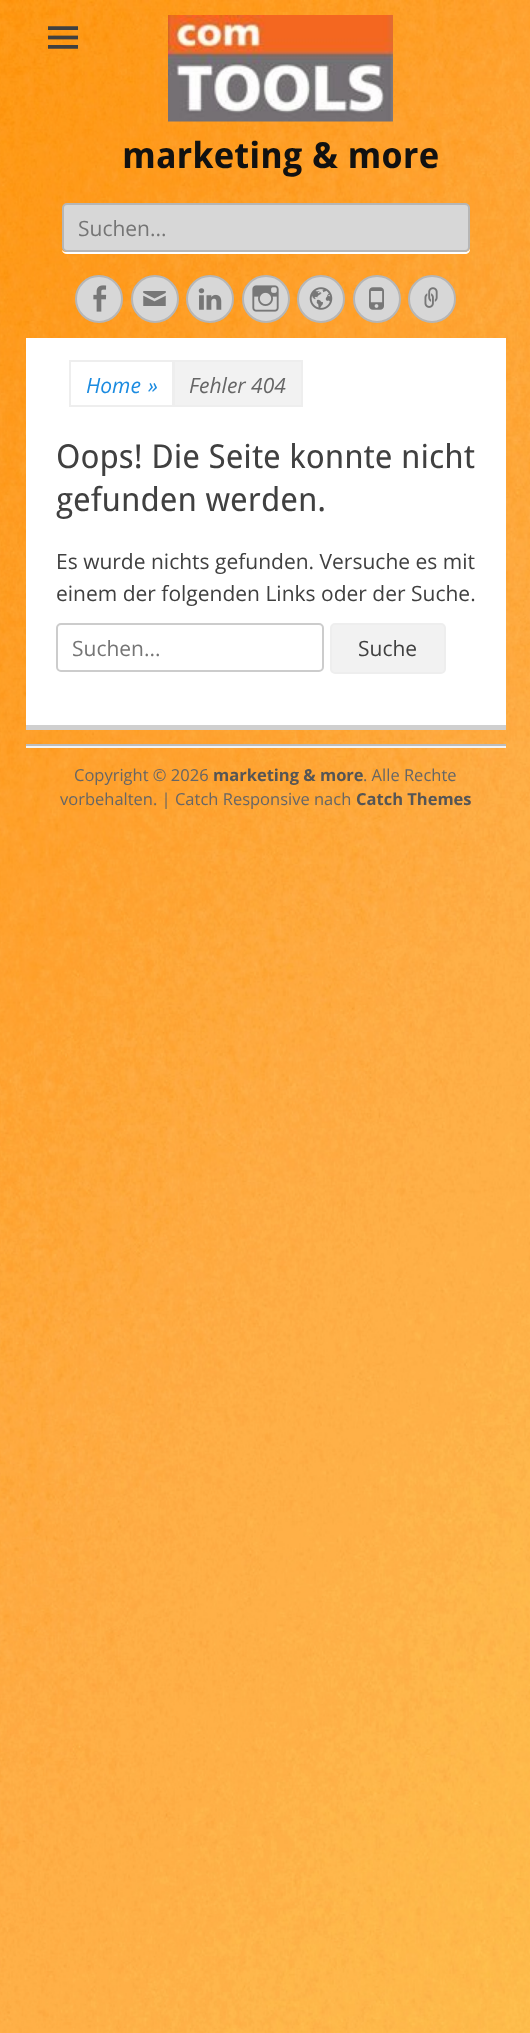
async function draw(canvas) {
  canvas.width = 530
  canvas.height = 2033
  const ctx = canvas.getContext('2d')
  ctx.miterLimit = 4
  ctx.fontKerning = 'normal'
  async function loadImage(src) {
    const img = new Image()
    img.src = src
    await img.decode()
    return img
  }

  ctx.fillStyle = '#fff'
  ctx.fillRect(0, 0, 530, 2033)
  ctx.drawImage(await loadImage('image0.png'), 0, 0, 530, 2033)
  ctx.drawImage(await loadImage('image1.png'), 48, 26, 30, 23)
  ctx.drawImage(await loadImage('image2.png'), 168, 15, 225, 107)
  ctx.font = 'bold 36px Droid Sans'
  ctx.fillStyle = '#111'
  ctx.fillText('marketing & more', 122, 168)
  ctx.fillStyle = '#fff'
  ctx.beginPath()
  ctx.moveTo(62, 250)
  ctx.bezierCurveTo(62, 252, 64, 254, 67, 254)
  ctx.lineTo(465, 254)
  ctx.bezierCurveTo(468, 254, 470, 252, 470, 249)
  ctx.lineTo(470, 209)
  ctx.lineTo(469, 207)
  ctx.lineTo(470, 248)
  ctx.bezierCurveTo(470, 250, 467, 252, 465, 252)
  ctx.lineTo(66, 252)
  ctx.bezierCurveTo(64, 252, 63, 251, 62, 250)
  ctx.closePath()
  ctx.fill()
  ctx.fillStyle = '#d7d7d7'
  ctx.beginPath()
  ctx.roundRect(63, 204, 406, 47, 4)
  ctx.fill()
  ctx.strokeStyle = '#b6b6b6'
  ctx.lineWidth = 2
  ctx.stroke()
  ctx.font = '21px Open Sans'
  ctx.fillStyle = '#757575'
  ctx.fillText('Suchen...', 78, 236)
  ctx.fillStyle = '#d7d7d7'
  ctx.beginPath()
  ctx.arc(99, 299, 23, 0, 2 * Math.PI)
  ctx.fill()
  ctx.stroke()
  ctx.drawImage(await loadImage('image3.png'), 93, 285, 14, 27)
  ctx.beginPath()
  ctx.arc(155, 299, 23, 0, 2 * Math.PI)
  ctx.fill()
  ctx.stroke()
  ctx.drawImage(await loadImage('image4.png'), 143, 291, 23, 15)
  ctx.beginPath()
  ctx.arc(210, 299, 23, 0, 2 * Math.PI)
  ctx.fill()
  ctx.stroke()
  ctx.drawImage(await loadImage('image5.png'), 198, 288, 24, 22)
  ctx.beginPath()
  ctx.arc(266, 299, 23, 0, 2 * Math.PI)
  ctx.fill()
  ctx.stroke()
  ctx.drawImage(await loadImage('image6.png'), 252, 285, 27, 27)
  ctx.beginPath()
  ctx.arc(321, 299, 23, 0, 2 * Math.PI)
  ctx.fill()
  ctx.stroke()
  ctx.drawImage(await loadImage('image7.png'), 309, 287, 24, 23)
  ctx.beginPath()
  ctx.arc(377, 299, 23, 0, 2 * Math.PI)
  ctx.fill()
  ctx.stroke()
  ctx.drawImage(await loadImage('image8.png'), 369, 287, 15, 23)
  ctx.beginPath()
  ctx.arc(432, 299, 23, 0, 2 * Math.PI)
  ctx.fill()
  ctx.stroke()
  ctx.drawImage(await loadImage('image9.png'), 424, 287, 14, 21)
  ctx.fillStyle = '#fff'
  ctx.fillRect(26, 338, 480, 387)
  ctx.strokeStyle = '#eee'
  ctx.strokeRect(70, 361, 103, 45)
  ctx.font = 'italic 21px Open Sans'
  ctx.fillStyle = '#1b8be0'
  ctx.fillText('Home', 86, 393)
  ctx.fillText('»', 148, 393)
  ctx.fillStyle = '#f2f2f2'
  ctx.beginPath()
  ctx.rect(174, 361, 128, 45)
  ctx.fill()
  ctx.stroke()
  ctx.fillStyle = '#666'
  ctx.fillText('Fehler 404', 189, 393)
  ctx.font = '33px Droid Sans'
  ctx.fillStyle = '#404040'
  ctx.fillText('Oops! Die Seite konnte nicht', 56, 468)
  ctx.fillText('gefunden werden.', 56, 511)
  ctx.font = '21px Open Sans'
  ctx.fillText('Es wurde nichts gefunden. Versuche es mit', 56, 569)
  ctx.fillText('einem der folgenden Links oder der Suche.', 56, 601)
  ctx.beginPath()
  ctx.roundRect(57, 624, 266, 47, 4)
  ctx.strokeStyle = '#ccc'
  ctx.stroke()
  ctx.fillStyle = '#757575'
  ctx.fillText('Suchen...', 72, 656)
  ctx.fillStyle = '#f2f2f2'
  ctx.beginPath()
  ctx.roundRect(331, 624, 114, 49, 4)
  ctx.fill()
  ctx.strokeStyle = '#eee'
  ctx.stroke()
  ctx.fillStyle = '#404040'
  ctx.fillText('Suche', 358, 656)
  ctx.fillStyle = '#cfcfcf'
  ctx.fillRect(26, 725, 480, 5)
  ctx.fillStyle = '#bcbcbc'
  ctx.fillRect(26, 744, 480, 2)
  ctx.fillStyle = '#f4f4f4'
  ctx.fillRect(26, 746, 480, 2)
  ctx.font = '16.5px Open Sans'
  ctx.fillStyle = '#666'
  ctx.fillText('Copyright © 2026', 74, 781)
  ctx.font = 'bold 16.5px Open Sans'
  ctx.fillStyle = '#555'
  ctx.fillText('marketing & more', 213, 781)
  ctx.font = '16.5px Open Sans'
  ctx.fillStyle = '#666'
  ctx.fillText('. Alle Rechte', 363, 781)
  ctx.fillText('vorbehalten. | Catch Responsive nach', 60, 805)
  ctx.font = 'bold 16.5px Open Sans'
  ctx.fillStyle = '#555'
  ctx.fillText('Catch Themes', 356, 805)
}

draw(document.querySelector('canvas'))
